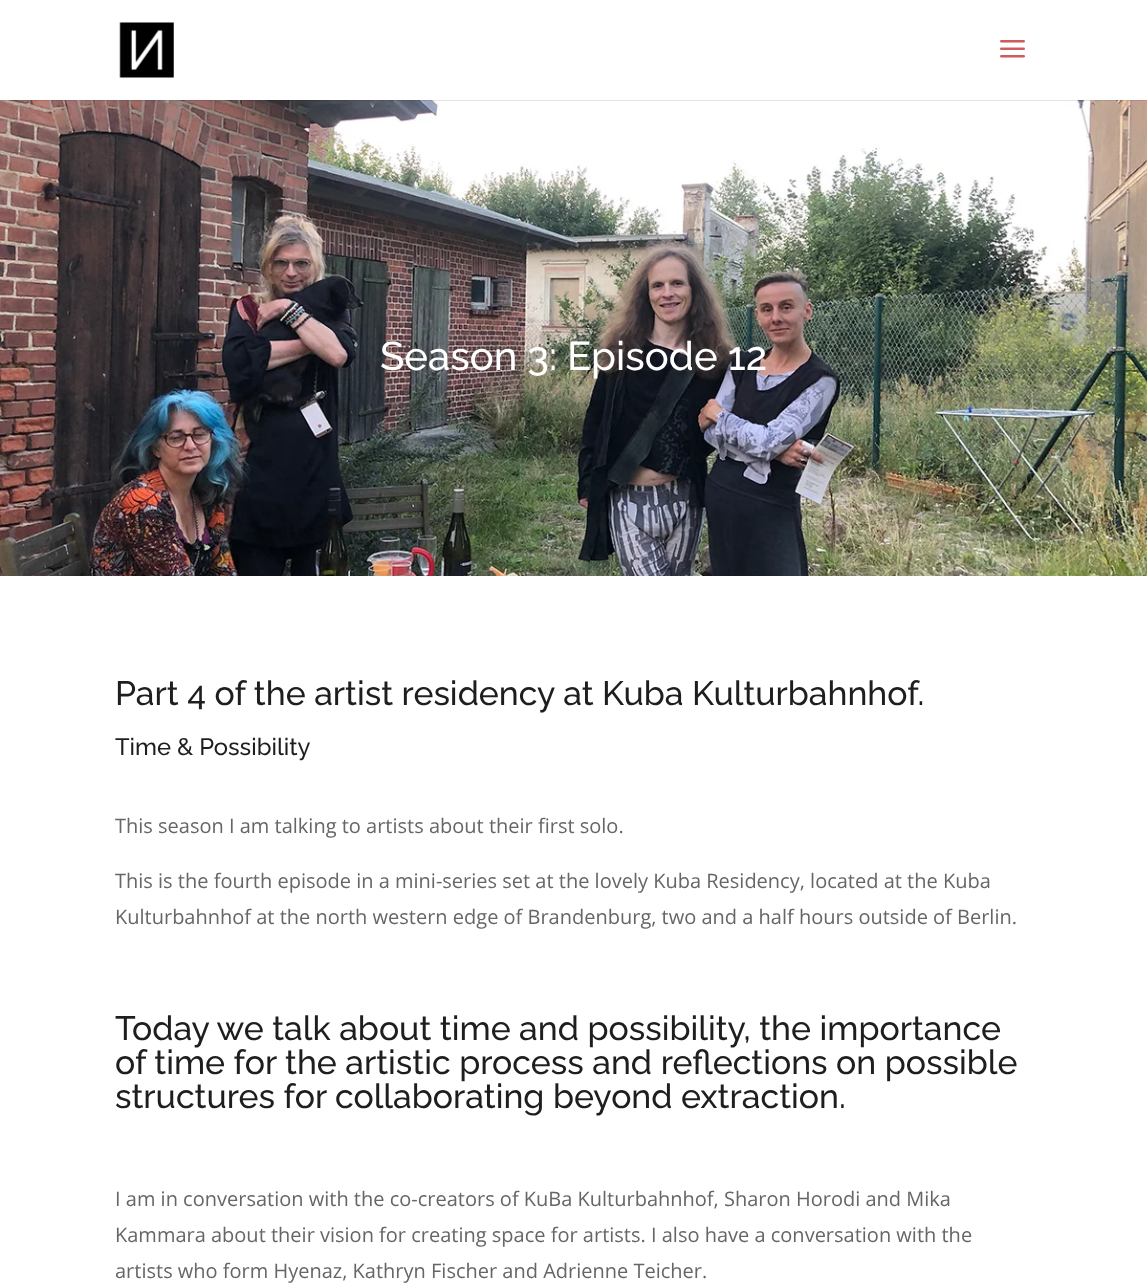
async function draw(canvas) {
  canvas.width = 1147
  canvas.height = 1283
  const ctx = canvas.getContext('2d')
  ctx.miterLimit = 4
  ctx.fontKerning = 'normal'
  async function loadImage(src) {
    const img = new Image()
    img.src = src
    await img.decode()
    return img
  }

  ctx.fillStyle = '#fff'
  ctx.fillRect(0, 0, 1147, 1283)
  ctx.drawImage(await loadImage('image2.png'), 0, 100, 1147, 476)
  ctx.fillStyle = '#0000001a'
  ctx.beginPath()
  ctx.moveTo(0, 100)
  ctx.lineTo(0, 101)
  ctx.lineTo(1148, 101)
  ctx.lineTo(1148, 1)
  ctx.lineTo(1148, 100)
  ctx.closePath()
  ctx.fill()
  ctx.drawImage(await loadImage('image0.png'), 119, 22, 55, 56)
  ctx.drawImage(await loadImage('image1.png'), 1000, 40, 25, 18)
  ctx.font = '500 40px Raleway'
  ctx.fillStyle = '#fff'
  ctx.fillText('Season 3: Episode 12', 380, 370)
  ctx.font = '500 33.75px Raleway'
  ctx.fillStyle = '#1e1e1e'
  ctx.fillText('Part 4 of the artist residency at Kuba Kulturbahnhof.', 115, 705)
  ctx.font = '500 23.75px Raleway'
  ctx.fillText('Time & Possibility', 115, 755)
  ctx.font = '20px Open Sans'
  ctx.fillStyle = '#666'
  ctx.fillText('This season I am talking to artists about their first solo.', 115, 833)
  ctx.fillText('This is the fourth episode in a mini-series set at the lovely Kuba Residency, located at the Kuba', 115, 888)
  ctx.fillText('Kulturbahnhof at the north western edge of Brandenburg, two and a half hours outside of Berlin.', 115, 924)
  ctx.font = '500 33.75px Raleway'
  ctx.fillStyle = '#1e1e1e'
  ctx.fillText('Today we talk about time and possibility, the importance', 115, 1040)
  ctx.fillText('of time for the artistic process and reflections on possible', 115, 1074)
  ctx.fillText('structures for collaborating beyond extraction.', 115, 1108)
  ctx.font = '20px Open Sans'
  ctx.fillStyle = '#666'
  ctx.fillText('I am in conversation with the co-creators of KuBa Kulturbahnhof, Sharon Horodi and Mika', 115, 1206)
  ctx.fillText('Kammara about their vision for creating space for artists. I also have a conversation with the', 115, 1242)
  ctx.fillText('artists who form Hyenaz, Kathryn Fischer and Adrienne Teicher.', 115, 1278)
}

draw(document.querySelector('canvas'))
